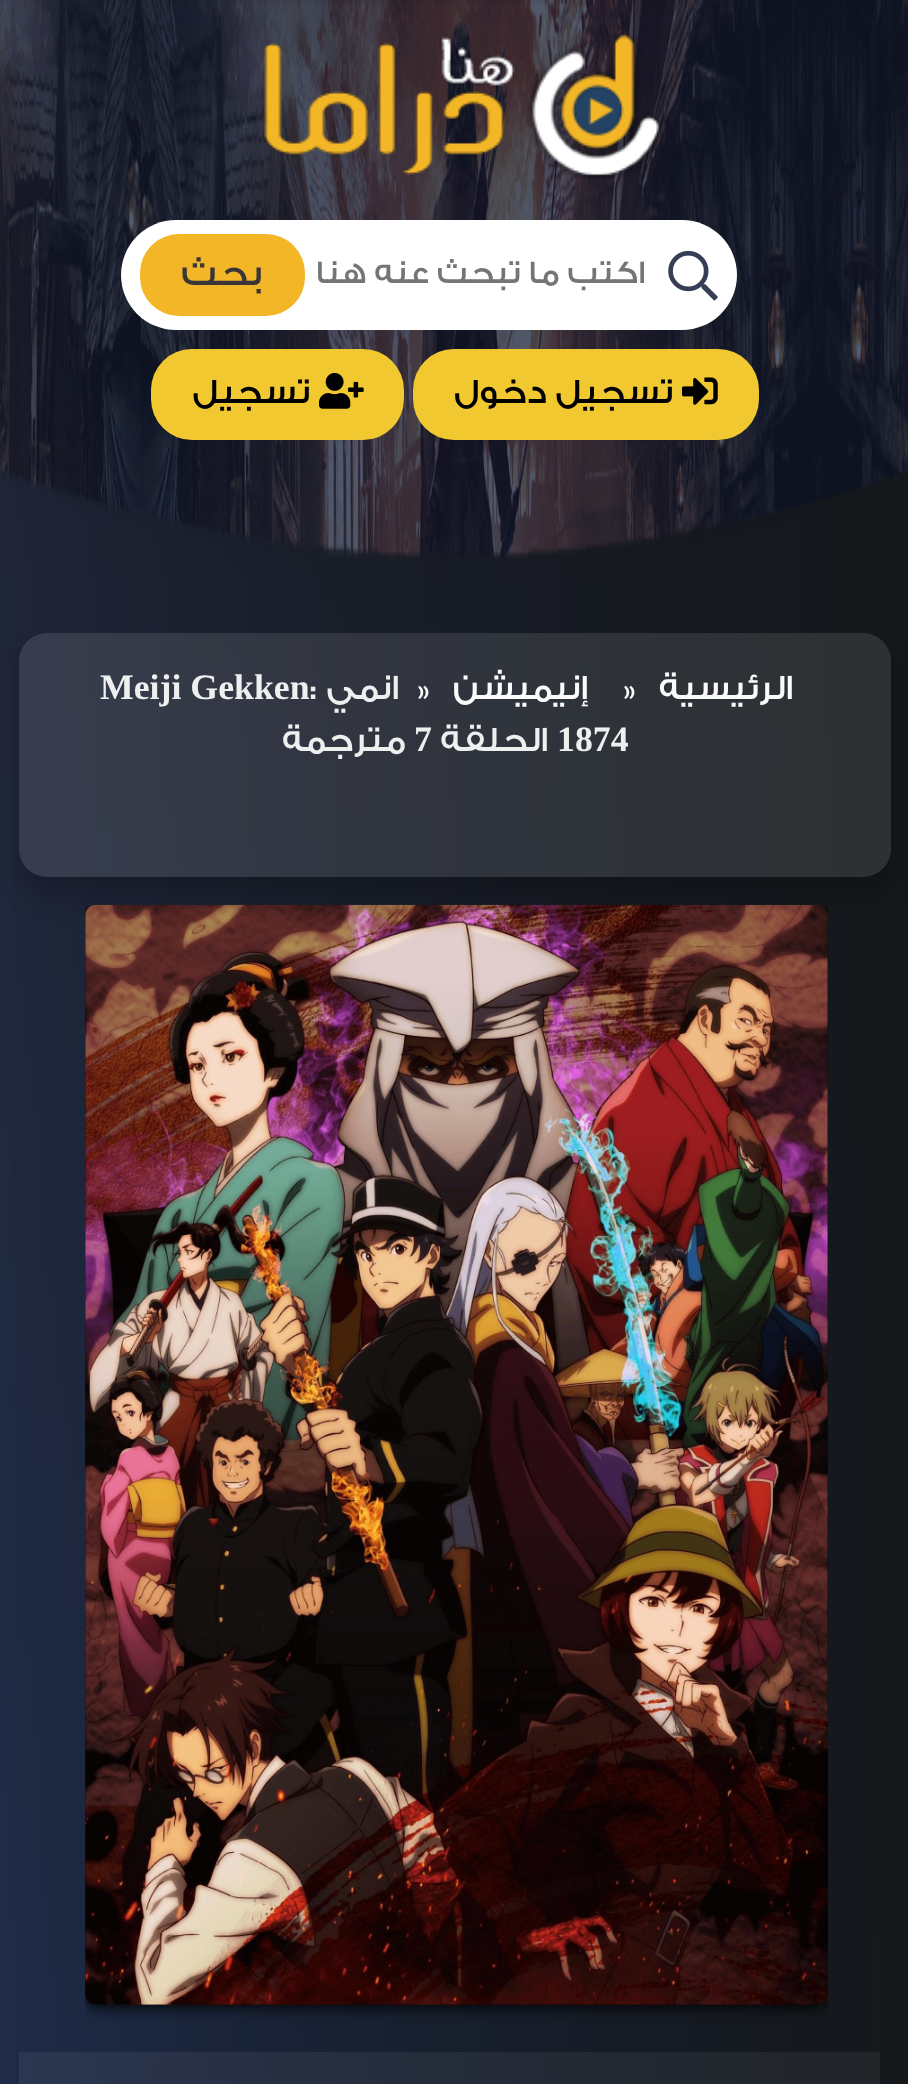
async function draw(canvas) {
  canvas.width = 908
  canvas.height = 2084
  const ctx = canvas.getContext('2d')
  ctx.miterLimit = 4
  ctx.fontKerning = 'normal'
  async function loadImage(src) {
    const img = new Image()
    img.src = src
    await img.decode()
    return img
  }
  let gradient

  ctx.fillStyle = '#fff'
  ctx.fillRect(0, 0, 908, 2084)
  gradient = ctx.createLinearGradient(455, 0, 455, 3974)
  gradient.addColorStop(0, '#202432')
  gradient.addColorStop(1, '#1e355f')
  ctx.fillStyle = gradient
  ctx.fillRect(0, 0, 905, 2084)
  gradient = ctx.createLinearGradient(0, 1987, 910, 1987)
  gradient.addColorStop(0, '#09090905')
  gradient.addColorStop(1, '#15181b')
  ctx.fillStyle = gradient
  ctx.fillRect(12, 0, 896, 2084)
  ctx.drawImage(await loadImage('image0.png'), 0, 0, 908, 559)
  ctx.drawImage(await loadImage('image1.png'), 264, 33, 399, 146)
  ctx.fillStyle = '#fff'
  ctx.beginPath()
  ctx.roundRect(121, 220, 616, 110, 55)
  ctx.fill()
  ctx.drawImage(await loadImage('image2.png'), 668, 250, 50, 51)
  ctx.save()
  ctx.beginPath()
  ctx.rect(314, 250, 332, 47)
  ctx.clip()
  ctx.direction = 'rtl'
  ctx.font = '500 33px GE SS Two'
  ctx.fillStyle = '#757575'
  ctx.fillText('اكتب ما تبحث عنه هنا ...', 645, 283)
  ctx.restore()
  ctx.fillStyle = '#f3b627'
  ctx.beginPath()
  ctx.roundRect(140, 234, 165, 82, 39)
  ctx.fill()
  ctx.direction = 'rtl'
  ctx.font = '500 38.5px GE SS Two'
  ctx.fillStyle = '#3a3636'
  ctx.fillText('بحث', 262, 285)
  ctx.fillStyle = '#f1c830'
  ctx.beginPath()
  ctx.roundRect(413, 349, 346, 91, 41)
  ctx.fill()
  ctx.drawImage(await loadImage('image3.png'), 682, 377, 36, 28)
  ctx.font = '500 35.75px GE SS Two'
  ctx.fillStyle = '#000'
  ctx.fillText('تسجيل دخول', 673, 403)
  ctx.fillStyle = '#f1c830'
  ctx.beginPath()
  ctx.roundRect(151, 349, 253, 91, 41)
  ctx.fill()
  ctx.drawImage(await loadImage('image4.png'), 319, 373, 45, 36)
  ctx.fillStyle = '#000'
  ctx.fillText('تسجيل', 310, 403)
  ctx.save()
  ctx.beginPath()
  ctx.rect(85, 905, 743, 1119)
  ctx.clip()
  ctx.fillStyle = '#000000d6'
  ctx.filter = 'blur(7px)'
  ctx.beginPath()
  ctx.roundRect(85, 908, 743, 1100, 11)
  ctx.fill()
  ctx.filter = 'none'
  ctx.restore()
  ctx.drawImage(await loadImage('image5.png'), 85, 904, 743, 1101)
  ctx.save()
  ctx.beginPath()
  ctx.rect(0, 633, 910, 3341)
  ctx.clip()
  ctx.beginPath()
  ctx.moveTo(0, 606)
  ctx.lineTo(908, 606)
  ctx.lineTo(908, 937)
  ctx.lineTo(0, 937)
  ctx.closePath()
  ctx.moveTo(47, 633)
  ctx.lineTo(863, 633)
  ctx.bezierCurveTo(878.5, 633, 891, 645.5, 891, 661)
  ctx.lineTo(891, 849)
  ctx.bezierCurveTo(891, 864.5, 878.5, 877, 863, 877)
  ctx.lineTo(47, 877)
  ctx.bezierCurveTo(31.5, 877, 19, 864.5, 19, 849)
  ctx.lineTo(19, 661)
  ctx.bezierCurveTo(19, 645.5, 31.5, 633, 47, 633)
  ctx.closePath()
  ctx.clip('evenodd')
  ctx.fillStyle = '#00000038'
  ctx.filter = 'blur(14px)'
  ctx.beginPath()
  ctx.roundRect(19, 649, 872, 245, 28)
  ctx.fill()
  ctx.filter = 'none'
  ctx.restore()
  ctx.fillStyle = '#ffffff1c'
  ctx.beginPath()
  ctx.roundRect(19, 633, 872, 244, 28)
  ctx.fill()
  ctx.fillStyle = '#fbfbfb'
  ctx.fillText('الرئيسية', 793, 699)
  ctx.direction = 'ltr'
  ctx.fillText('»', 621, 699)
  ctx.direction = 'rtl'
  ctx.fillText('إنيميشن', 588, 699)
  ctx.direction = 'ltr'
  ctx.fillText('»', 415, 699)
  ctx.direction = 'rtl'
  ctx.fillStyle = '#efefef'
  ctx.fillText('انمي', 399, 699)
  ctx.direction = 'ltr'
  ctx.fillText(':', 310, 699)
  ctx.font = 'bold 35.75px Liberation Serif'
  ctx.fillText('Meiji Gekken', 100, 699)
  ctx.fillText('1874', 557, 751)
  ctx.direction = 'rtl'
  ctx.font = '500 35.75px GE SS Two'
  ctx.fillText('الحلقة', 548, 751)
  ctx.direction = 'ltr'
  ctx.font = 'bold 35.75px Liberation Serif'
  ctx.fillText('7', 414, 751)
  ctx.direction = 'rtl'
  ctx.font = '500 35.75px GE SS Two'
  ctx.fillText('مترجمة', 406, 751)
  ctx.fillStyle = '#ffffff0f'
  ctx.fillRect(19, 2052, 861, 32)
}

draw(document.querySelector('canvas'))
